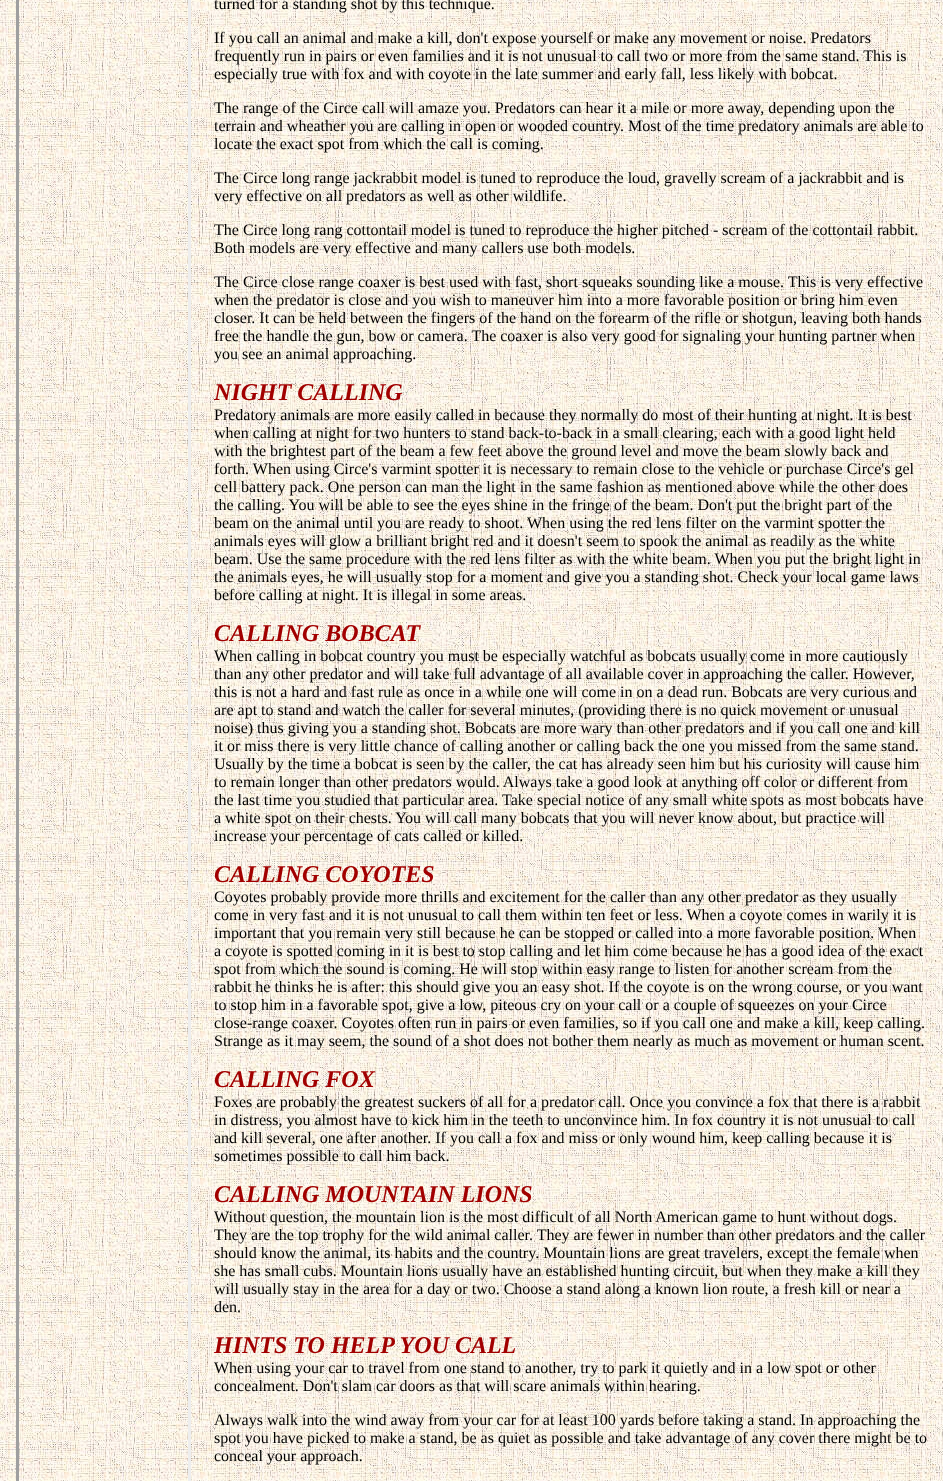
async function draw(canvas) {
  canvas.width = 943
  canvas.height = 1481
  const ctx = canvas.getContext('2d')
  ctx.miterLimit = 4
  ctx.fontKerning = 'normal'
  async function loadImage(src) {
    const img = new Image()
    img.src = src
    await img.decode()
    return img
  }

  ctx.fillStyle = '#fff'
  ctx.fillRect(0, 0, 943, 1481)
  ctx.drawImage(await loadImage('image0.png'), 0, 0, 943, 1481)
  ctx.fillStyle = '#eee'
  ctx.beginPath()
  ctx.moveTo(191, -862)
  ctx.lineTo(191, 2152)
  ctx.lineTo(188, 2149)
  ctx.lineTo(188, -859)
  ctx.closePath()
  ctx.fill()
  ctx.fillStyle = '#9f9f9f'
  ctx.beginPath()
  ctx.moveTo(16, 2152)
  ctx.lineTo(16, -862)
  ctx.lineTo(19, -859)
  ctx.lineTo(19, 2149)
  ctx.closePath()
  ctx.fill()
  ctx.font = '16px Liberation Serif'
  ctx.fillStyle = '#000'
  ctx.fillText('turned for a standing shot by this technique.', 214, 9)
  ctx.fillText('If you call an animal and make a kill, don\'t expose yourself or make any movement or noise. Predators', 214, 43)
  ctx.fillText('frequently run in pairs or even families and it is not unusual to call two or more from the same stand. This is', 214, 61)
  ctx.fillText('especially true with fox and with coyote in the late summer and early fall, less likely with bobcat.', 214, 79)
  ctx.fillText('The range of the Circe call will amaze you. Predators can hear it a mile or more away, depending upon the', 214, 113)
  ctx.fillText('terrain and wheather you are calling in open or wooded country. Most of the time predatory animals are able to', 214, 131)
  ctx.fillText('locate the exact spot from which the call is coming.', 214, 149)
  ctx.fillText('The Circe long range jackrabbit model is tuned to reproduce the loud, gravelly scream of a jackrabbit and is', 214, 183)
  ctx.fillText('very effective on all predators as well as other wildlife.', 214, 201)
  ctx.fillText('The Circe long rang cottontail model is tuned to reproduce the higher pitched - scream of the cottontail rabbit.', 214, 235)
  ctx.fillText('Both models are very effective and many callers use both models.', 214, 253)
  ctx.fillText('The Circe close range coaxer is best used with fast, short squeaks sounding like a mouse. This is very effective', 214, 287)
  ctx.fillText('when the predator is close and you wish to maneuver him into a more favorable position or bring him even', 214, 305)
  ctx.fillText('closer. It can be held between the fingers of the hand on the forearm of the rifle or shotgun, leaving both hands', 214, 323)
  ctx.fillText('free the handle the gun, bow or camera. The coaxer is also very good for signaling your hunting partner when', 214, 341)
  ctx.fillText('you see an animal approaching.', 214, 359)
  ctx.font = 'italic bold 24px Liberation Serif'
  ctx.fillStyle = '#a20000'
  ctx.fillText('NIGHT CALLING', 214, 400)
  ctx.font = '16px Liberation Serif'
  ctx.fillStyle = '#000'
  ctx.fillText('Predatory animals are more easily called in because they normally do most of their hunting at night. It is best', 214, 420)
  ctx.fillText('when calling at night for two hunters to stand back-to-back in a small clearing, each with a good light held', 214, 438)
  ctx.fillText('with the brightest part of the beam a few feet above the ground level and move the beam slowly back and', 214, 456)
  ctx.fillText('forth. When using Circe\'s varmint spotter it is necessary to remain close to the vehicle or purchase Circe\'s gel', 214, 474)
  ctx.fillText('cell battery pack. One person can man the light in the same fashion as mentioned above while the other does', 214, 492)
  ctx.fillText('the calling. You will be able to see the eyes shine in the fringe of the beam. Don\'t put the bright part of the', 214, 510)
  ctx.fillText('beam on the animal until you are ready to shoot. When using the red lens filter on the varmint spotter the', 214, 528)
  ctx.fillText('animals eyes will glow a brilliant bright red and it doesn\'t seem to spook the animal as readily as the white', 214, 546)
  ctx.fillText('beam. Use the same procedure with the red lens filter as with the white beam. When you put the bright light in', 214, 564)
  ctx.fillText('the animals eyes, he will usually stop for a moment and give you a standing shot. Check your local game laws', 214, 582)
  ctx.fillText('before calling at night. It is illegal in some areas.', 214, 600)
  ctx.font = 'italic bold 24px Liberation Serif'
  ctx.fillStyle = '#a20000'
  ctx.fillText('CALLING BOBCAT', 214, 641)
  ctx.font = '16px Liberation Serif'
  ctx.fillStyle = '#000'
  ctx.fillText('When calling in bobcat country you must be especially watchful as bobcats usually come in more cautiously', 214, 661)
  ctx.fillText('than any other predator and will take full advantage of all available cover in approaching the caller. However,', 214, 679)
  ctx.fillText('this is not a hard and fast rule as once in a while one will come in on a dead run. Bobcats are very curious and', 214, 697)
  ctx.fillText('are apt to stand and watch the caller for several minutes, (providing there is no quick movement or unusual', 214, 715)
  ctx.fillText('noise) thus giving you a standing shot. Bobcats are more wary than other predators and if you call one and kill', 214, 733)
  ctx.fillText('it or miss there is very little chance of calling another or calling back the one you missed from the same stand.', 214, 751)
  ctx.fillText('Usually by the time a bobcat is seen by the caller, the cat has already seen him but his curiosity will cause him', 214, 769)
  ctx.fillText('to remain longer than other predators would. Always take a good look at anything off color or different from', 214, 787)
  ctx.fillText('the last time you studied that particular area. Take special notice of any small white spots as most bobcats have', 214, 805)
  ctx.fillText('a white spot on their chests. You will call many bobcats that you will never know about, but practice will', 214, 823)
  ctx.fillText('increase your percentage of cats called or killed.', 214, 841)
  ctx.font = 'italic bold 24px Liberation Serif'
  ctx.fillStyle = '#a20000'
  ctx.fillText('CALLING COYOTES', 214, 882)
  ctx.font = '16px Liberation Serif'
  ctx.fillStyle = '#000'
  ctx.fillText('Coyotes probably provide more thrills and excitement for the caller than any other predator as they usually', 214, 902)
  ctx.fillText('come in very fast and it is not unusual to call them within ten feet or less. When a coyote comes in warily it is', 214, 920)
  ctx.fillText('important that you remain very still because he can be stopped or called into a more favorable position. When', 214, 938)
  ctx.fillText('a coyote is spotted coming in it is best to stop calling and let him come because he has a good idea of the exact', 214, 956)
  ctx.fillText('spot from which the sound is coming. He will stop within easy range to listen for another scream from the', 214, 974)
  ctx.fillText('rabbit he thinks he is after: this should give you an easy shot. If the coyote is on the wrong course, or you want', 214, 992)
  ctx.fillText('to stop him in a favorable spot, give a low, piteous cry on your call or a couple of squeezes on your Circe', 214, 1010)
  ctx.fillText('close-range coaxer. Coyotes often run in pairs or even families, so if you call one and make a kill, keep calling.', 214, 1028)
  ctx.fillText('Strange as it may seem, the sound of a shot does not bother them nearly as much as movement or human scent.', 214, 1046)
  ctx.font = 'italic bold 24px Liberation Serif'
  ctx.fillStyle = '#a20000'
  ctx.fillText('CALLING FOX', 214, 1087)
  ctx.font = '16px Liberation Serif'
  ctx.fillStyle = '#000'
  ctx.fillText('Foxes are probably the greatest suckers of all for a predator call. Once you convince a fox that there is a rabbit', 214, 1107)
  ctx.fillText('in distress, you almost have to kick him in the teeth to unconvince him. In fox country it is not unusual to call', 214, 1125)
  ctx.fillText('and kill several, one after another. If you call a fox and miss or only wound him, keep calling because it is', 214, 1143)
  ctx.fillText('sometimes possible to call him back.', 214, 1161)
  ctx.font = 'italic bold 24px Liberation Serif'
  ctx.fillStyle = '#a20000'
  ctx.fillText('CALLING MOUNTAIN LIONS', 214, 1202)
  ctx.font = '16px Liberation Serif'
  ctx.fillStyle = '#000'
  ctx.fillText('Without question, the mountain lion is the most difficult of all North American game to hunt without dogs.', 214, 1222)
  ctx.fillText('They are the top trophy for the wild animal caller. They are fewer in number than other predators and the caller', 214, 1240)
  ctx.fillText('should know the animal, its habits and the country. Mountain lions are great travelers, except the female when', 214, 1258)
  ctx.fillText('she has small cubs. Mountain lions usually have an established hunting circuit, but when they make a kill they', 214, 1276)
  ctx.fillText('will usually stay in the area for a day or two. Choose a stand along a known lion route, a fresh kill or near a', 214, 1294)
  ctx.fillText('den.', 214, 1312)
  ctx.font = 'italic bold 24px Liberation Serif'
  ctx.fillStyle = '#a20000'
  ctx.fillText('HINTS TO HELP YOU CALL', 214, 1353)
  ctx.font = '16px Liberation Serif'
  ctx.fillStyle = '#000'
  ctx.fillText('When using your car to travel from one stand to another, try to park it quietly and in a low spot or other', 214, 1373)
  ctx.fillText('concealment. Don\'t slam car doors as that will scare animals within hearing.', 214, 1391)
  ctx.fillText('Always walk into the wind away from your car for at least 100 yards before taking a stand. In approaching the', 214, 1425)
  ctx.fillText('spot you have picked to make a stand, be as quiet as possible and take advantage of any cover there might be to', 214, 1443)
  ctx.fillText('conceal your approach.', 214, 1461)
}

draw(document.querySelector('canvas'))
